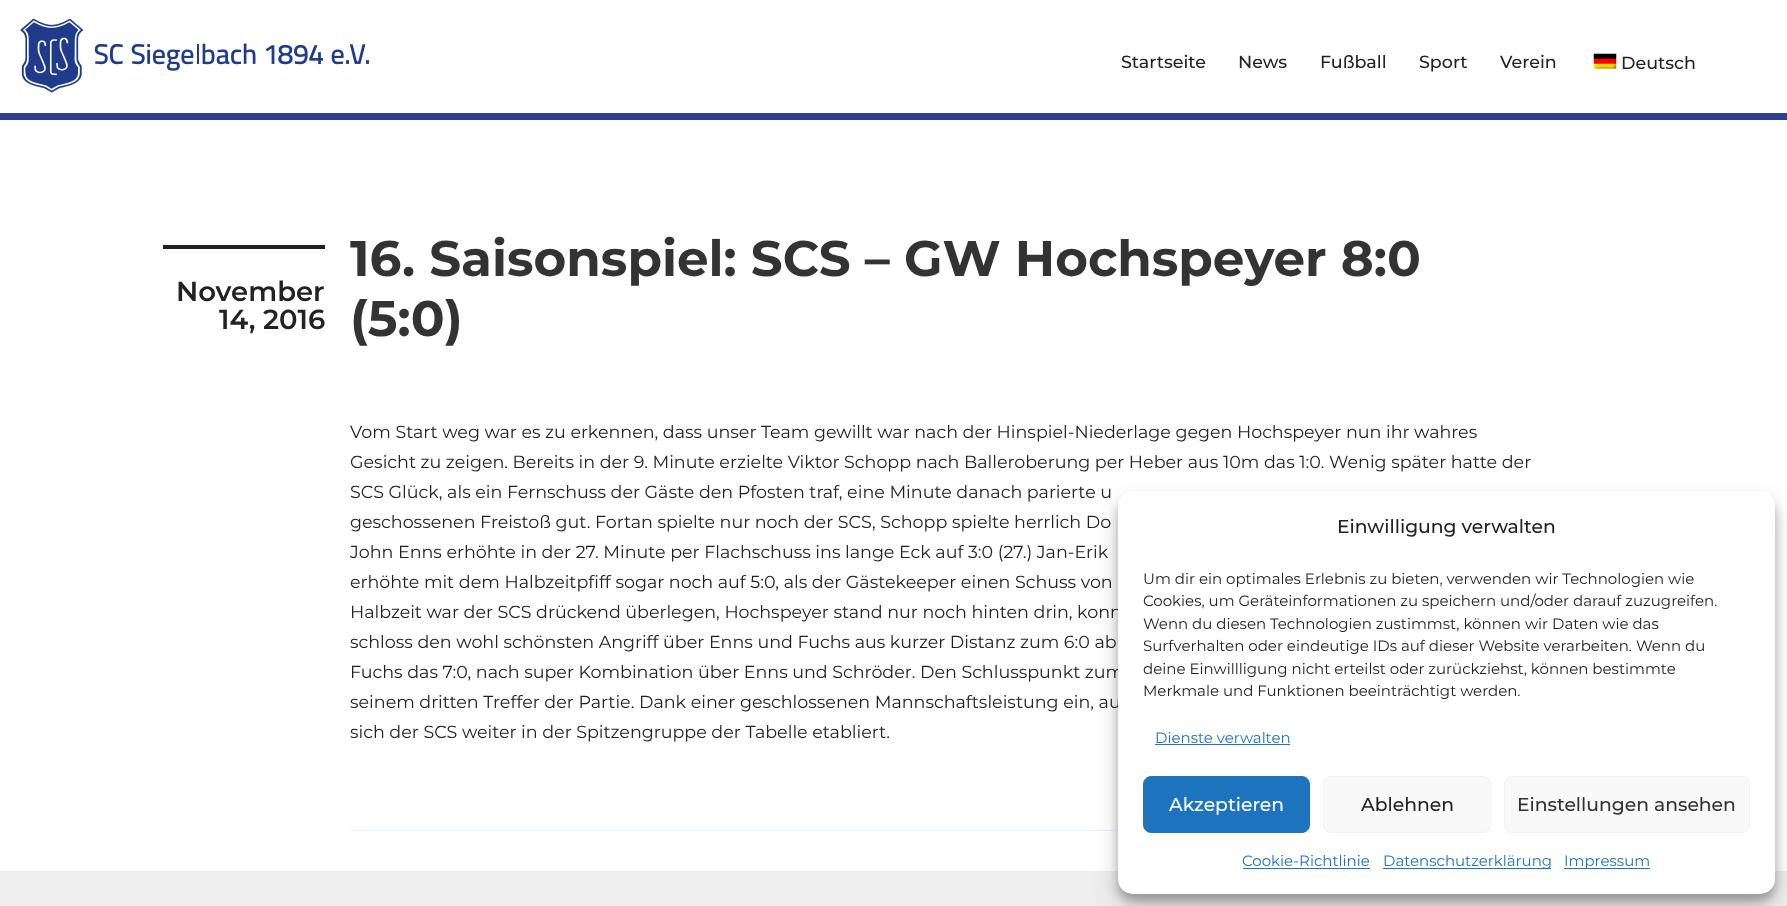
async function draw(canvas) {
  canvas.width = 1787
  canvas.height = 906
  const ctx = canvas.getContext('2d')
  ctx.miterLimit = 4
  ctx.fontKerning = 'normal'
  async function loadImage(src) {
    const img = new Image()
    img.src = src
    await img.decode()
    return img
  }

  ctx.fillStyle = '#fff'
  ctx.fillRect(0, 0, 1787, 906)
  ctx.fillStyle = '#2b3e91'
  ctx.fillRect(0, 113, 1787, 7)
  ctx.drawImage(await loadImage('image0.png'), 20, 19, 349, 74)
  ctx.font = '500 17.5px Montserrat'
  ctx.fillStyle = '#222'
  ctx.fillText('Startseite', 1121, 68)
  ctx.fillText('News', 1238, 68)
  ctx.fillText('Fußball', 1320, 68)
  ctx.fillText('Sport', 1419, 68)
  ctx.fillText('Verein', 1500, 68)
  ctx.drawImage(await loadImage('image1.png'), 1593, 53, 24, 16)
  ctx.fillText('Deutsch', 1621, 69)
  ctx.fillRect(163, 245, 162, 4)
  ctx.font = '600 27.5px Montserrat'
  ctx.fillText('November', 176, 301)
  ctx.fillText('14, 2016', 219, 329)
  ctx.font = 'bold 50px Montserrat'
  ctx.fillStyle = '#333'
  ctx.fillText('16. Saisonspiel: SCS – GW Hochspeyer 8:0', 350, 276)
  ctx.fillText('(5:0)', 350, 336)
  ctx.font = '17.5px Montserrat'
  ctx.fillStyle = '#222'
  ctx.fillText('Vom Start weg war es zu erkennen, dass unser Team gewillt war nach der Hinspiel-Niederlage gegen Hochspeyer nun ihr wahres', 350, 438)
  ctx.fillText('Gesicht zu zeigen. Bereits in der 9. Minute erzielte Viktor Schopp nach Balleroberung per Heber aus 10m das 1:0. Wenig später hatte der', 350, 468)
  ctx.fillText('SCS Glück, als ein Fernschuss der Gäste den Pfosten traf, eine Minute danach parierte u', 350, 498)
  ctx.fillText('geschossenen Freistoß gut. Fortan spielte nur noch der SCS, Schopp spielte herrlich Do', 350, 528)
  ctx.fillText('John Enns erhöhte in der 27. Minute per Flachschuss ins lange Eck auf 3:0 (27.) Jan-Erik', 350, 558)
  ctx.fillText('erhöhte mit dem Halbzeitpfiff sogar noch auf 5:0, als der Gästekeeper einen Schuss von', 350, 588)
  ctx.fillText('Halbzeit war der SCS drückend überlegen, Hochspeyer stand nur noch hinten drin, konn', 350, 618)
  ctx.fillText('schloss den wohl schönsten Angriff über Enns und Fuchs aus kurzer Distanz zum 6:0 ab', 350, 648)
  ctx.fillText('Fuchs das 7:0, nach super Kombination über Enns und Schröder. Den Schlusspunkt zum', 350, 678)
  ctx.fillText('seinem dritten Treffer der Partie. Dank einer geschlossenen Mannschaftsleistung ein, au', 350, 708)
  ctx.fillText('sich der SCS weiter in der Spitzengruppe der Tabelle etabliert.', 350, 738)
  ctx.fillStyle = '#e7f3ff'
  ctx.fillRect(350, 830, 768, 1)
  ctx.fillStyle = '#eee'
  ctx.fillRect(0, 871, 1787, 35)
  ctx.fillStyle = '#0000003b'
  ctx.filter = 'blur(4px)'
  ctx.beginPath()
  ctx.roundRect(1118, 499, 657, 402, 15)
  ctx.fill()
  ctx.filter = 'none'
  ctx.fillStyle = '#00000030'
  ctx.filter = 'blur(12.5px)'
  ctx.beginPath()
  ctx.roundRect(1118, 504, 657, 402, 15)
  ctx.fill()
  ctx.filter = 'none'
  ctx.fillStyle = '#fff'
  ctx.beginPath()
  ctx.roundRect(1118, 491, 657, 403, 15)
  ctx.fill()
  ctx.font = '500 18.75px Montserrat'
  ctx.fillStyle = '#222'
  ctx.fillText('Einwilligung verwalten', 1337, 533)
  ctx.font = '15px Montserrat'
  ctx.fillText('Um dir ein optimales Erlebnis zu bieten, verwenden wir Technologien wie', 1143, 584)
  ctx.fillText('Cookies, um Geräteinformationen zu speichern und/oder darauf zuzugreifen.', 1143, 606)
  ctx.fillText('Wenn du diesen Technologien zustimmst, können wir Daten wie das', 1143, 629)
  ctx.fillText('Surfverhalten oder eindeutige IDs auf dieser Website verarbeiten. Wenn du', 1143, 651)
  ctx.fillText('deine Einwillligung nicht erteilst oder zurückziehst, können bestimmte', 1143, 674)
  ctx.fillText('Merkmale und Funktionen beeinträchtigt werden.', 1143, 696)
  ctx.fillStyle = '#1e73be'
  ctx.fillText('Dienste verwalten', 1155, 743)
  ctx.fillRect(1155, 744, 135, 1)
  ctx.beginPath()
  ctx.roundRect(1143.5, 776.5, 166, 56, 7.5)
  ctx.fill()
  ctx.strokeStyle = '#1e73be'
  ctx.stroke()
  ctx.font = '500 18.75px Montserrat'
  ctx.fillStyle = '#fff'
  ctx.fillText('Akzeptieren', 1169, 811)
  ctx.fillStyle = '#f9f9f9'
  ctx.beginPath()
  ctx.roundRect(1323.5, 776.5, 167, 56, 7.5)
  ctx.fill()
  ctx.strokeStyle = '#f2f2f2'
  ctx.stroke()
  ctx.fillStyle = '#222'
  ctx.fillText('Ablehnen', 1361, 811)
  ctx.fillStyle = '#f9f9f9'
  ctx.beginPath()
  ctx.roundRect(1504.5, 776.5, 245, 56, 7.5)
  ctx.fill()
  ctx.stroke()
  ctx.fillStyle = '#333'
  ctx.fillText('Einstellungen ansehen', 1517, 811)
  ctx.font = '15px Montserrat'
  ctx.fillStyle = '#1e73be'
  ctx.fillText('Cookie-Richtlinie', 1242, 866)
  ctx.fillRect(1243, 868, 127, 1)
  ctx.fillRect(1383, 868, 168, 1)
  ctx.fillText('Datenschutzerklärung', 1383, 866)
  ctx.fillRect(1564, 868, 86, 1)
  ctx.fillText('Impressum', 1564, 866)
}

draw(document.querySelector('canvas'))
